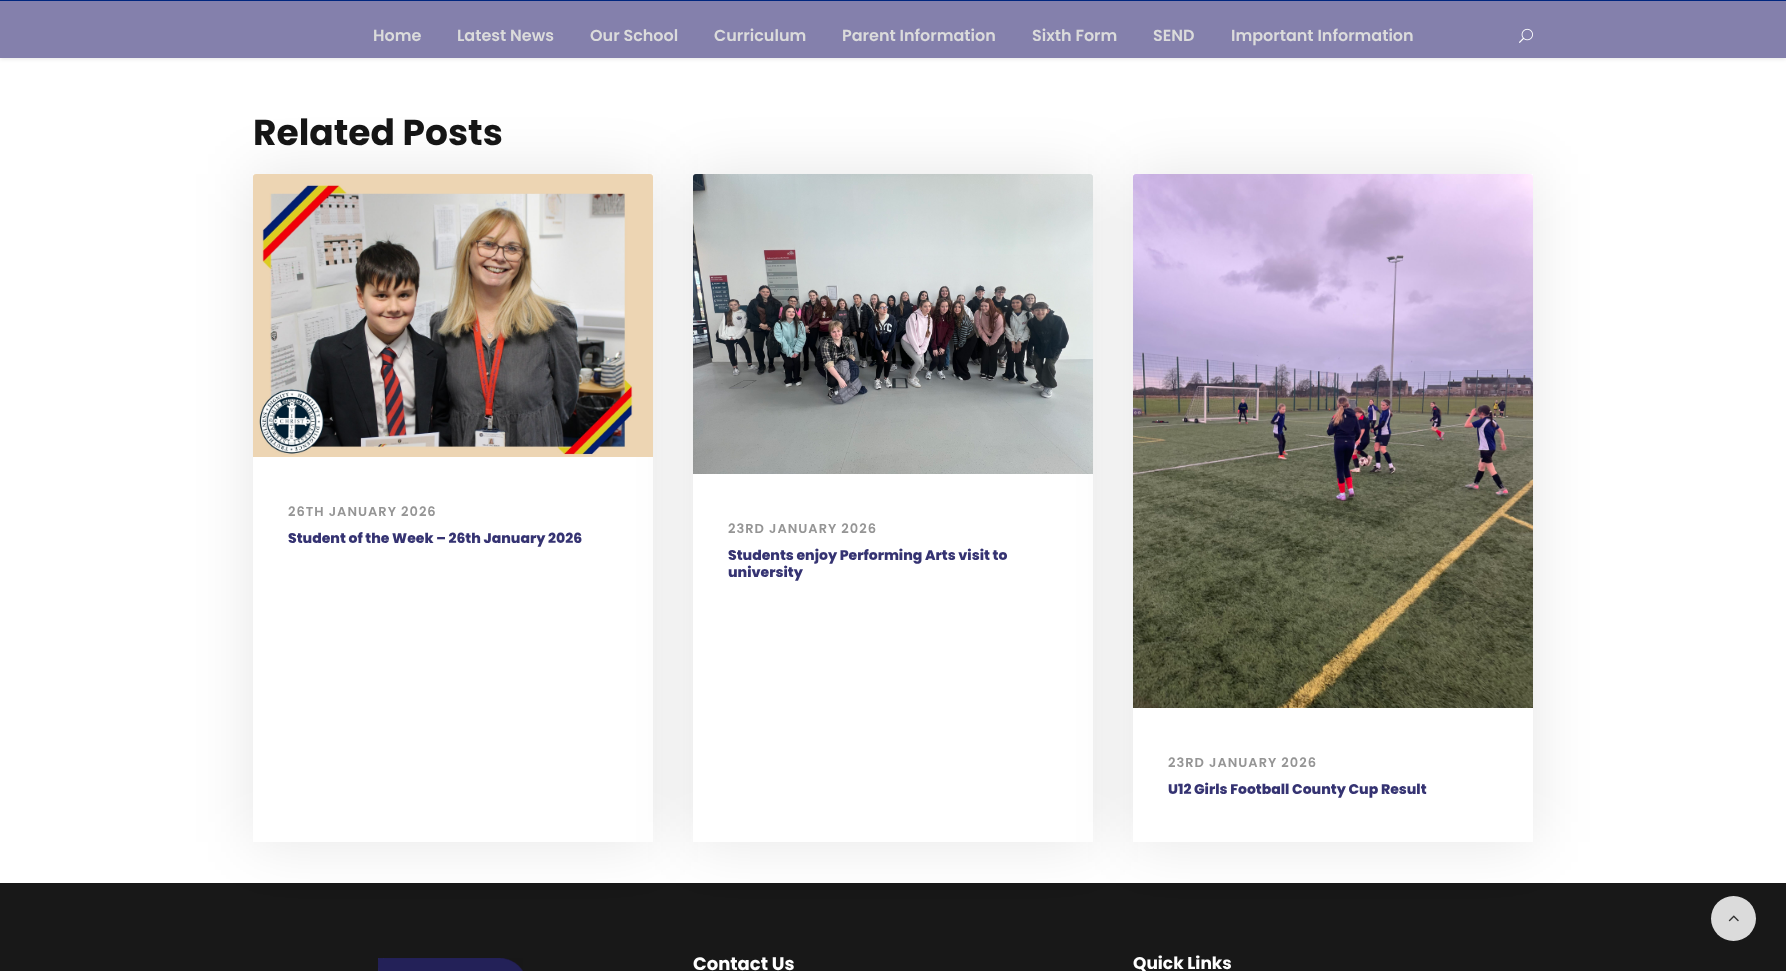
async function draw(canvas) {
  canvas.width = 1786
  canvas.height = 971
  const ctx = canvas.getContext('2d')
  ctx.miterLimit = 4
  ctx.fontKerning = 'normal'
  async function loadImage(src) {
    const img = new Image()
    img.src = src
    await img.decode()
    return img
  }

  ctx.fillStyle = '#fff'
  ctx.fillRect(0, 0, 1786, 971)
  ctx.fillStyle = '#0000001a'
  ctx.filter = 'blur(2px)'
  ctx.beginPath()
  ctx.rect(0, 1, 1786, 58)
  ctx.fill()
  ctx.filter = 'none'
  ctx.fillStyle = '#00267f'
  ctx.fillRect(0, 0, 1786, 1)
  ctx.fillStyle = '#8480ac'
  ctx.fillRect(0, 1, 1786, 57)
  ctx.font = '600 16px Poppins'
  ctx.fillStyle = '#dbdbdb'
  ctx.fillText('Home', 373, 41)
  ctx.fillText('Latest News', 457, 41)
  ctx.fillText('Our School', 590, 41)
  ctx.fillText('Curriculum', 714, 41)
  ctx.fillText('Parent Information', 842, 41)
  ctx.fillText('Sixth Form', 1032, 41)
  ctx.fillText('SEND', 1153, 41)
  ctx.fillText('Important Information', 1231, 41)
  ctx.drawImage(await loadImage('image0.png'), 1519, 28, 14, 15)
  ctx.font = 'bold 36px Poppins'
  ctx.fillStyle = '#161616'
  ctx.fillText('Related Posts', 253, 145)
  ctx.fillStyle = '#181818'
  ctx.fillRect(0, 883, 1786, 88)
  ctx.save()
  ctx.beginPath()
  ctx.moveTo(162, 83)
  ctx.lineTo(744, 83)
  ctx.lineTo(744, 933)
  ctx.lineTo(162, 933)
  ctx.closePath()
  ctx.moveTo(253, 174)
  ctx.lineTo(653, 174)
  ctx.lineTo(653, 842)
  ctx.lineTo(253, 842)
  ctx.closePath()
  ctx.clip('evenodd')
  ctx.fillStyle = '#0000001a'
  ctx.filter = 'blur(30px)'
  ctx.beginPath()
  ctx.rect(253, 174, 400, 668)
  ctx.fill()
  ctx.filter = 'none'
  ctx.restore()
  ctx.fillStyle = '#0000001a'
  ctx.filter = 'blur(30px)'
  ctx.beginPath()
  ctx.rect(693, 174, 400, 668)
  ctx.fill()
  ctx.filter = 'none'
  ctx.drawImage(await loadImage('image1.png'), 253, 174, 400, 283)
  ctx.letterSpacing = '1px'
  ctx.font = '600 13px Poppins'
  ctx.fillStyle = '#959595'
  ctx.fillText('26TH JANUARY 2026', 288, 516)
  ctx.letterSpacing = '0px'
  ctx.font = '800 14px Poppins'
  ctx.fillStyle = '#353372'
  ctx.fillText('Student of the Week – 26th January 2026', 288, 543)
  ctx.fillStyle = '#fff'
  ctx.fillRect(693, 174, 400, 668)
  ctx.fillStyle = '#0000001a'
  ctx.filter = 'blur(30px)'
  ctx.beginPath()
  ctx.rect(1133, 174, 400, 668)
  ctx.fill()
  ctx.filter = 'none'
  ctx.drawImage(await loadImage('image2.png'), 693, 174, 400, 300)
  ctx.letterSpacing = '1px'
  ctx.font = '600 13px Poppins'
  ctx.fillStyle = '#959595'
  ctx.fillText('23RD JANUARY 2026', 728, 533)
  ctx.letterSpacing = '0px'
  ctx.font = '800 14px Poppins'
  ctx.fillStyle = '#353372'
  ctx.fillText('Students enjoy Performing Arts visit to', 728, 560)
  ctx.fillText('university', 728, 577)
  ctx.fillStyle = '#fff'
  ctx.fillRect(1133, 174, 400, 668)
  ctx.drawImage(await loadImage('image3.png'), 1133, 174, 400, 534)
  ctx.letterSpacing = '1px'
  ctx.font = '600 13px Poppins'
  ctx.fillStyle = '#959595'
  ctx.fillText('23RD JANUARY 2026', 1168, 767)
  ctx.letterSpacing = '0px'
  ctx.font = '800 14px Poppins'
  ctx.fillStyle = '#353372'
  ctx.fillText('U12 Girls Football County Cup Result', 1168, 794)
  ctx.drawImage(await loadImage('image4.png'), 378, 958, 145, 13)
  ctx.font = 'bold 18px Poppins'
  ctx.fillStyle = '#fff'
  ctx.fillText('Contact Us', 693, 970)
  ctx.font = 'bold 17px Poppins'
  ctx.fillText('Quick Links', 1133, 969)
  ctx.fillStyle = '#dbdbdb'
  ctx.beginPath()
  ctx.arc(1733.5, 918.5, 22.5, 0, 2 * Math.PI)
  ctx.fill()
  ctx.drawImage(await loadImage('image5.png'), 1728, 915, 11, 7)
}

draw(document.querySelector('canvas'))
